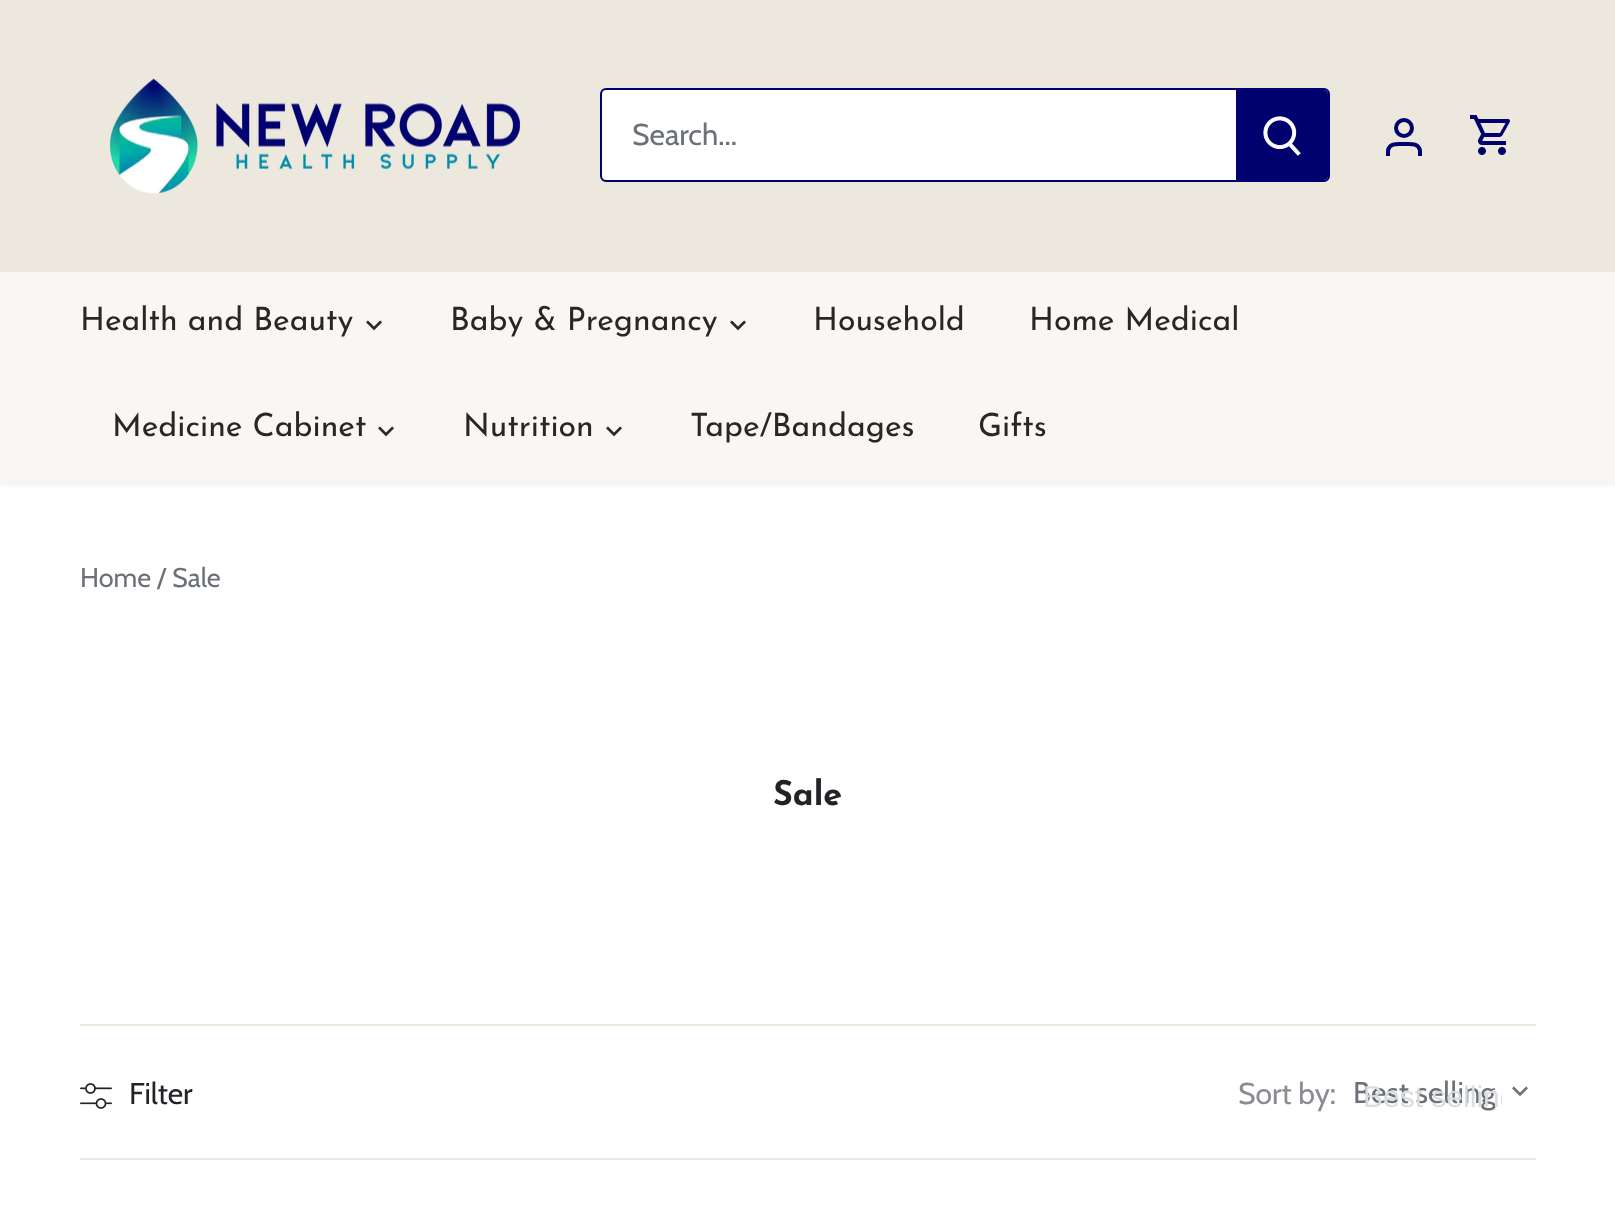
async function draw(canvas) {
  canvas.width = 1615
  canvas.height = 1232
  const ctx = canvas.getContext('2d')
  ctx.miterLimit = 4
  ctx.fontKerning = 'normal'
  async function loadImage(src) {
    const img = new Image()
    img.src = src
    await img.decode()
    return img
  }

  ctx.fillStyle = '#fff'
  ctx.fillRect(0, 0, 1615, 1232)
  ctx.fillStyle = '#00000014'
  ctx.filter = 'blur(3px)'
  ctx.beginPath()
  ctx.rect(-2, -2, 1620, 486)
  ctx.fill()
  ctx.filter = 'none'
  ctx.fillStyle = '#f9f7f4'
  ctx.fillRect(0, 272, 1615, 210)
  ctx.fillStyle = '#ede8dd'
  ctx.fillRect(0, 0, 1615, 272)
  ctx.drawImage(await loadImage('image0.png'), 109, 78, 412, 116)
  ctx.beginPath()
  ctx.roundRect(601, 89, 728, 92, 5)
  ctx.strokeStyle = '#00006f'
  ctx.lineWidth = 2
  ctx.stroke()
  ctx.fillStyle = '#fff'
  ctx.beginPath()
  ctx.roundRect(602, 90, 636, 90, [6, 0, 0, 6])
  ctx.fill()
  ctx.font = '30px Cabin'
  ctx.fillStyle = '#6b7177'
  ctx.fillText('Search...', 632, 145)
  ctx.fillStyle = '#00006f'
  ctx.beginPath()
  ctx.roundRect(1236, 90, 92, 90, [0, 4, 4, 0])
  ctx.fill()
  ctx.drawImage(await loadImage('image1.png'), 1263, 116, 38, 40)
  ctx.beginPath()
  ctx.arc(1404, 128, 8, 0, 2 * Math.PI)
  ctx.lineWidth = 4
  ctx.stroke()
  ctx.beginPath()
  ctx.moveTo(1420, 156)
  ctx.lineTo(1420, 150.5)
  ctx.bezierCurveTo(1418.5, 142.5, 1410, 144, 1404, 144)
  ctx.bezierCurveTo(1398, 144, 1389.5, 142.5, 1388, 150.5)
  ctx.lineTo(1388, 156)
  ctx.stroke()
  ctx.drawImage(await loadImage('image2.png'), 1470, 115, 40, 40)
  ctx.font = '32px Josefin Sans'
  ctx.fillStyle = '#2c2528'
  ctx.fillText('Health and Beauty', 80, 330)
  ctx.drawImage(await loadImage('image3.png'), 366, 320, 16, 11)
  ctx.fillText('Baby & Pregnancy', 450, 330)
  ctx.drawImage(await loadImage('image3.png'), 730, 320, 16, 11)
  ctx.fillText('Household', 813, 330)
  ctx.fillText('Home Medical', 1029, 330)
  ctx.fillText('Medicine Cabinet', 112, 436)
  ctx.drawImage(await loadImage('image3.png'), 378, 426, 16, 11)
  ctx.fillText('Nutrition', 463, 436)
  ctx.drawImage(await loadImage('image3.png'), 606, 426, 16, 11)
  ctx.fillText('Tape/Bandages', 690, 436)
  ctx.fillText('Gifts', 978, 436)
  ctx.font = '27px Cabin'
  ctx.fillStyle = '#6b7177'
  ctx.fillText('Home / Sale', 80, 587)
  ctx.font = 'bold 34px Josefin Sans'
  ctx.fillStyle = '#212326'
  ctx.fillText('Sale', 773, 805)
  ctx.fillStyle = '#ede8dd'
  ctx.fillRect(80, 1024, 1456, 2)
  ctx.fillRect(80, 1158, 1456, 2)
  ctx.drawImage(await loadImage('image4.png'), 80, 1083, 32, 26)
  ctx.font = '30px Cabin'
  ctx.fillStyle = '#212326'
  ctx.fillText('Filter', 129, 1104)
  ctx.fillStyle = '#898d92'
  ctx.fillText('Sort by:', 1238, 1104)
  ctx.fillStyle = '#6b7177'
  ctx.fillText('Best selling', 1353, 1103)
  ctx.save()
  ctx.beginPath()
  ctx.rect(1364, 1076, 138, 38)
  ctx.clip()
  ctx.font = '30px Liberation Sans'
  ctx.fillStyle = '#dbdcde'
  ctx.fillText('Best selling', 1363, 1107)
  ctx.restore()
  ctx.drawImage(await loadImage('image5.png'), 1512, 1086, 16, 11)
}

draw(document.querySelector('canvas'))
